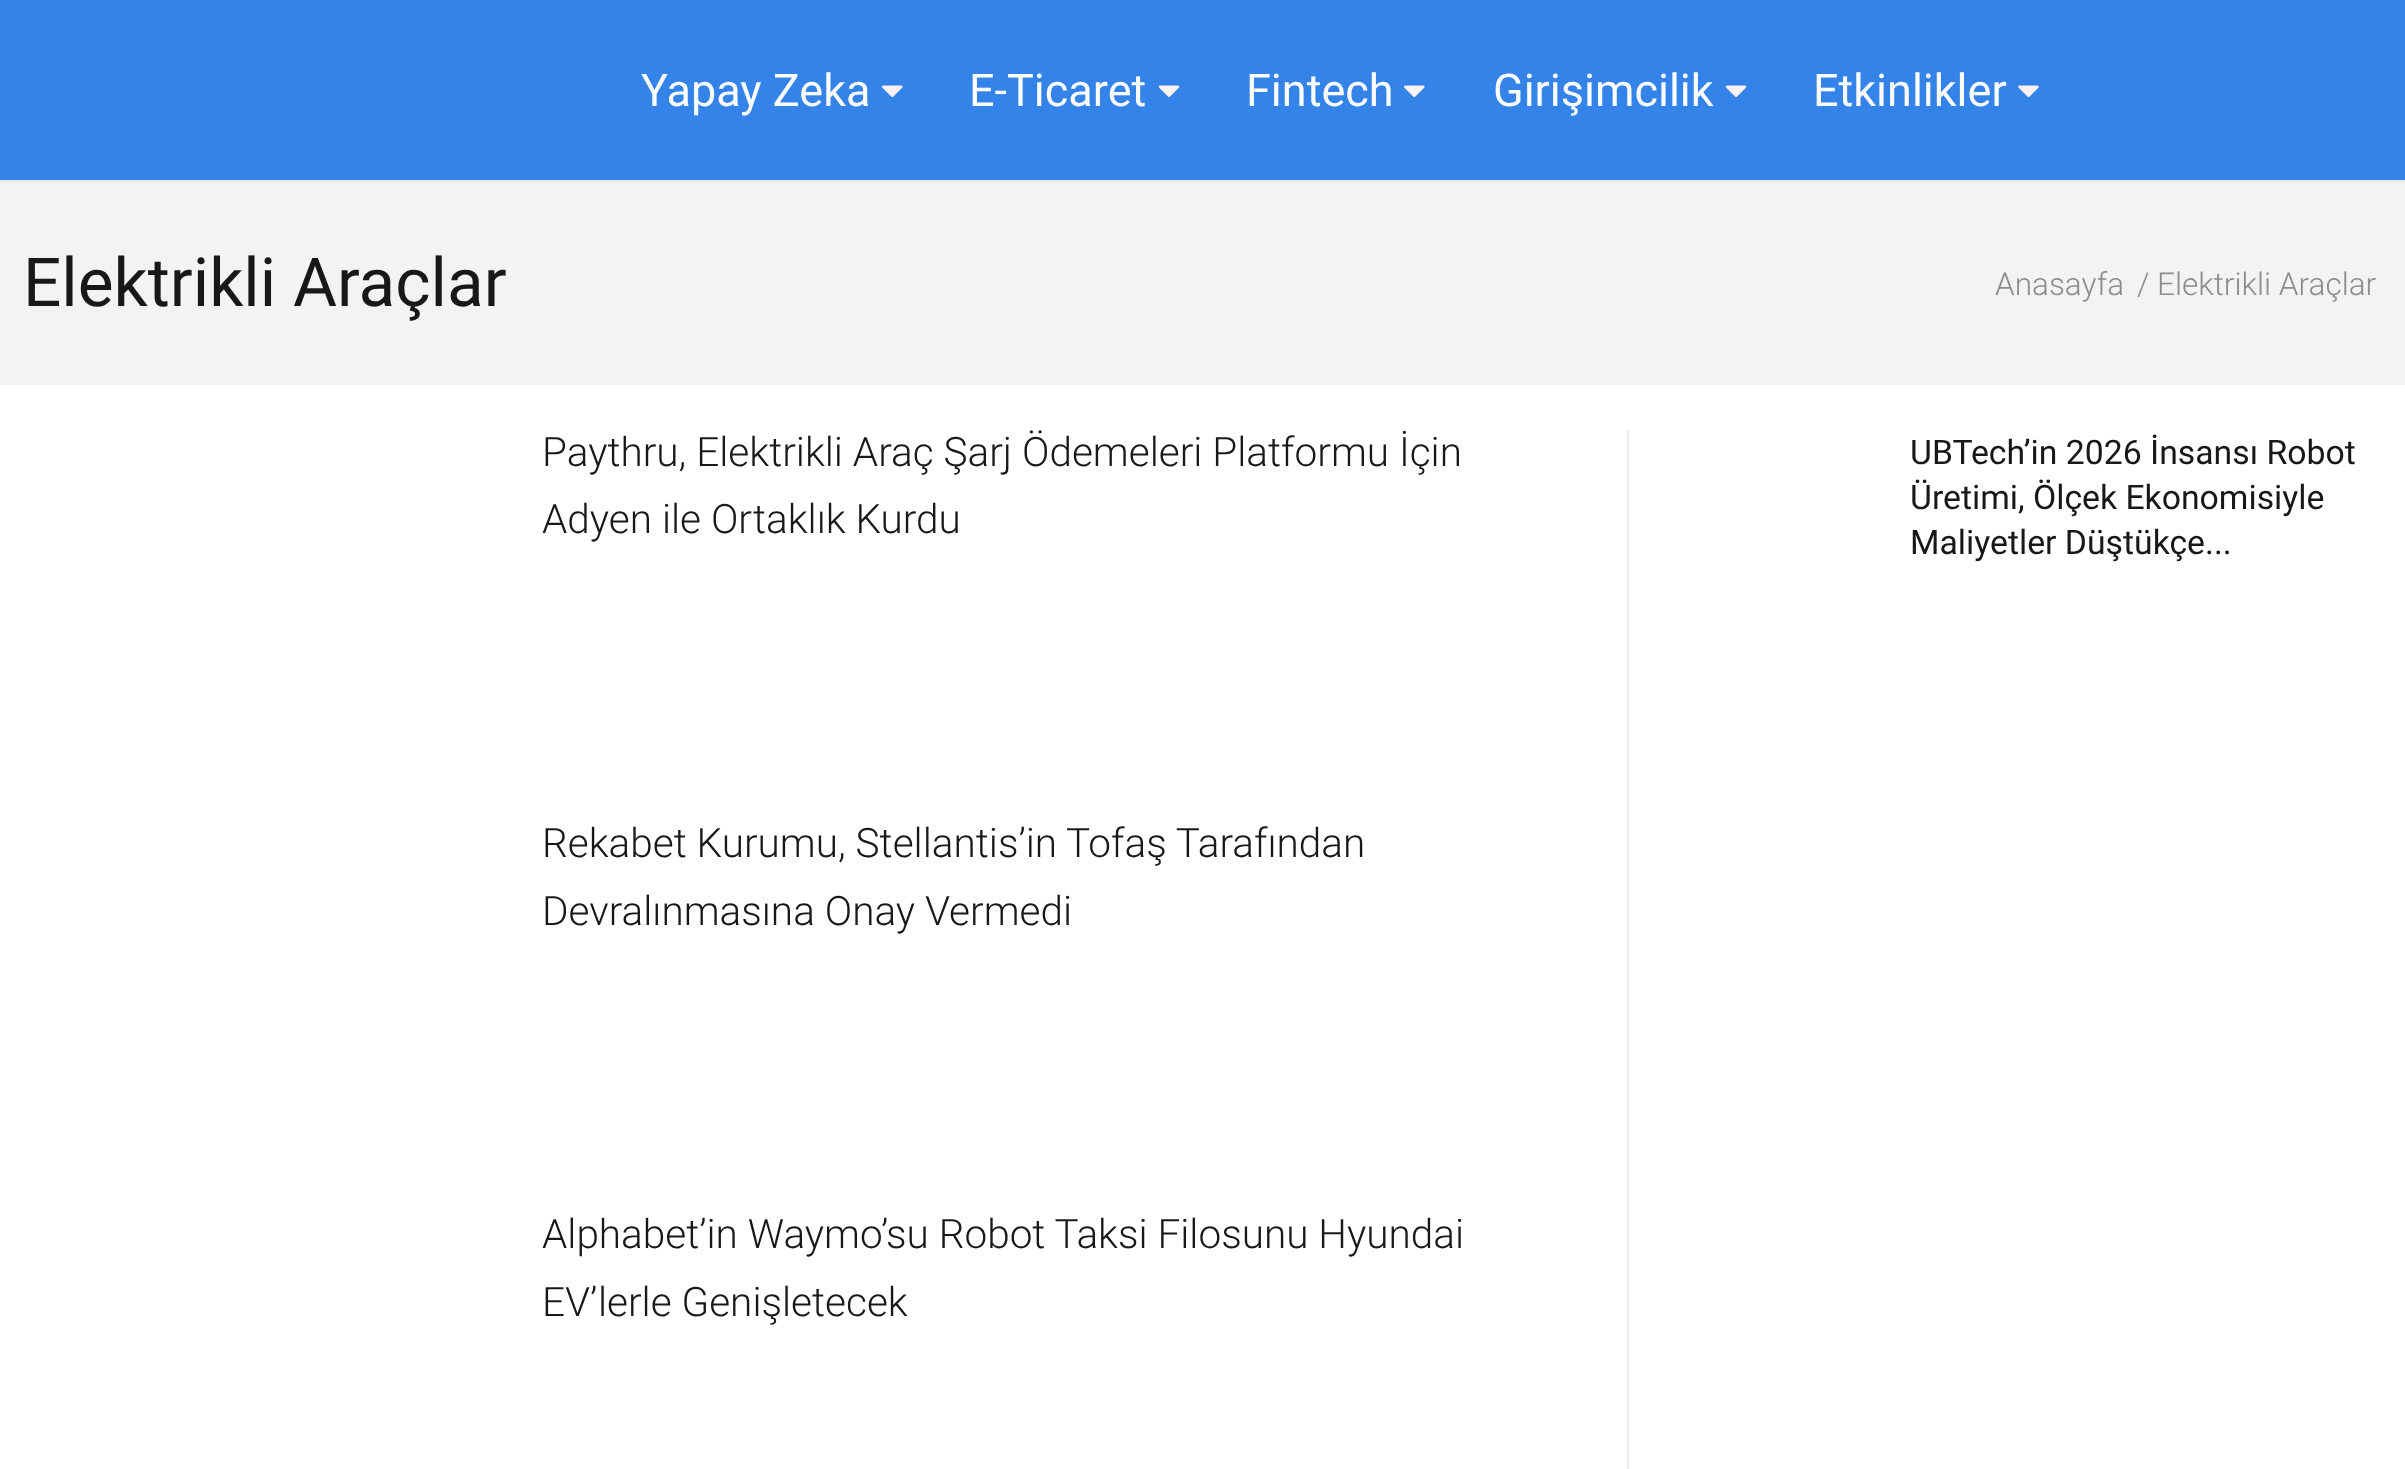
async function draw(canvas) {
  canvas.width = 2405
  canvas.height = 1469
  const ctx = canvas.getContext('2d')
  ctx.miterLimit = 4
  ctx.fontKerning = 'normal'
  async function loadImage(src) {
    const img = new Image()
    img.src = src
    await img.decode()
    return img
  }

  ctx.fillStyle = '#fff'
  ctx.fillRect(0, 0, 2405, 1469)
  ctx.fillStyle = '#3483e8'
  ctx.fillRect(0, 0, 2405, 180)
  ctx.fillStyle = '#eaeaea'
  ctx.fillRect(0, 180, 2405, 2)
  ctx.font = '45px Roboto'
  ctx.fillStyle = '#fcfcfc'
  ctx.fillText('Yapay Zeka', 641, 106)
  ctx.drawImage(await loadImage('image0.png'), 882, 85, 21, 13)
  ctx.fillText('E-Ticaret', 969, 106)
  ctx.drawImage(await loadImage('image1.png'), 1158, 85, 22, 12)
  ctx.fillText('Fintech', 1246, 106)
  ctx.drawImage(await loadImage('image0.png'), 1404, 85, 21, 13)
  ctx.fillText('Girişimcilik', 1493, 106)
  ctx.drawImage(await loadImage('image1.png'), 1725, 85, 22, 12)
  ctx.fillText('Etkinlikler', 1813, 106)
  ctx.drawImage(await loadImage('image2.png'), 2018, 85, 21, 13)
  ctx.fillStyle = '#f3f3f3'
  ctx.fillRect(0, 182, 2405, 203)
  ctx.font = '67.5px Roboto'
  ctx.fillStyle = '#181818'
  ctx.fillText('Elektrikli Araçlar', 23, 306)
  ctx.font = '300 31.5px Roboto'
  ctx.fillStyle = '#8b8c8e'
  ctx.fillText('Anasayfa', 1995, 295)
  ctx.fillText('/', 2137, 295)
  ctx.fillText('Elektrikli Araçlar', 2157, 295)
  ctx.font = '300 40.5px Roboto'
  ctx.fillStyle = '#181818'
  ctx.fillText('Paythru, Elektrikli Araç Şarj Ödemeleri Platformu İçin', 542, 466)
  ctx.fillText('Adyen ile Ortaklık Kurdu', 542, 533)
  ctx.fillText('Rekabet Kurumu, Stellantis’in Tofaş Tarafından', 542, 857)
  ctx.fillText('Devralınmasına Onay Vermedi', 542, 925)
  ctx.fillText('Alphabet’in Waymo’su Robot Taksi Filosunu Hyundai', 542, 1248)
  ctx.fillText('EV’lerle Genişletecek', 542, 1316)
  ctx.fillStyle = '#eaeaea'
  ctx.fillRect(1627, 430, 2, 1039)
  ctx.font = '33.75px Roboto'
  ctx.fillStyle = '#181818'
  ctx.fillText('UBTech’in 2026 İnsansı Robot', 1910, 464)
  ctx.fillText('Üretimi, Ölçek Ekonomisiyle', 1910, 509)
  ctx.fillText('Maliyetler Düştükçe...', 1910, 554)
}

draw(document.querySelector('canvas'))
